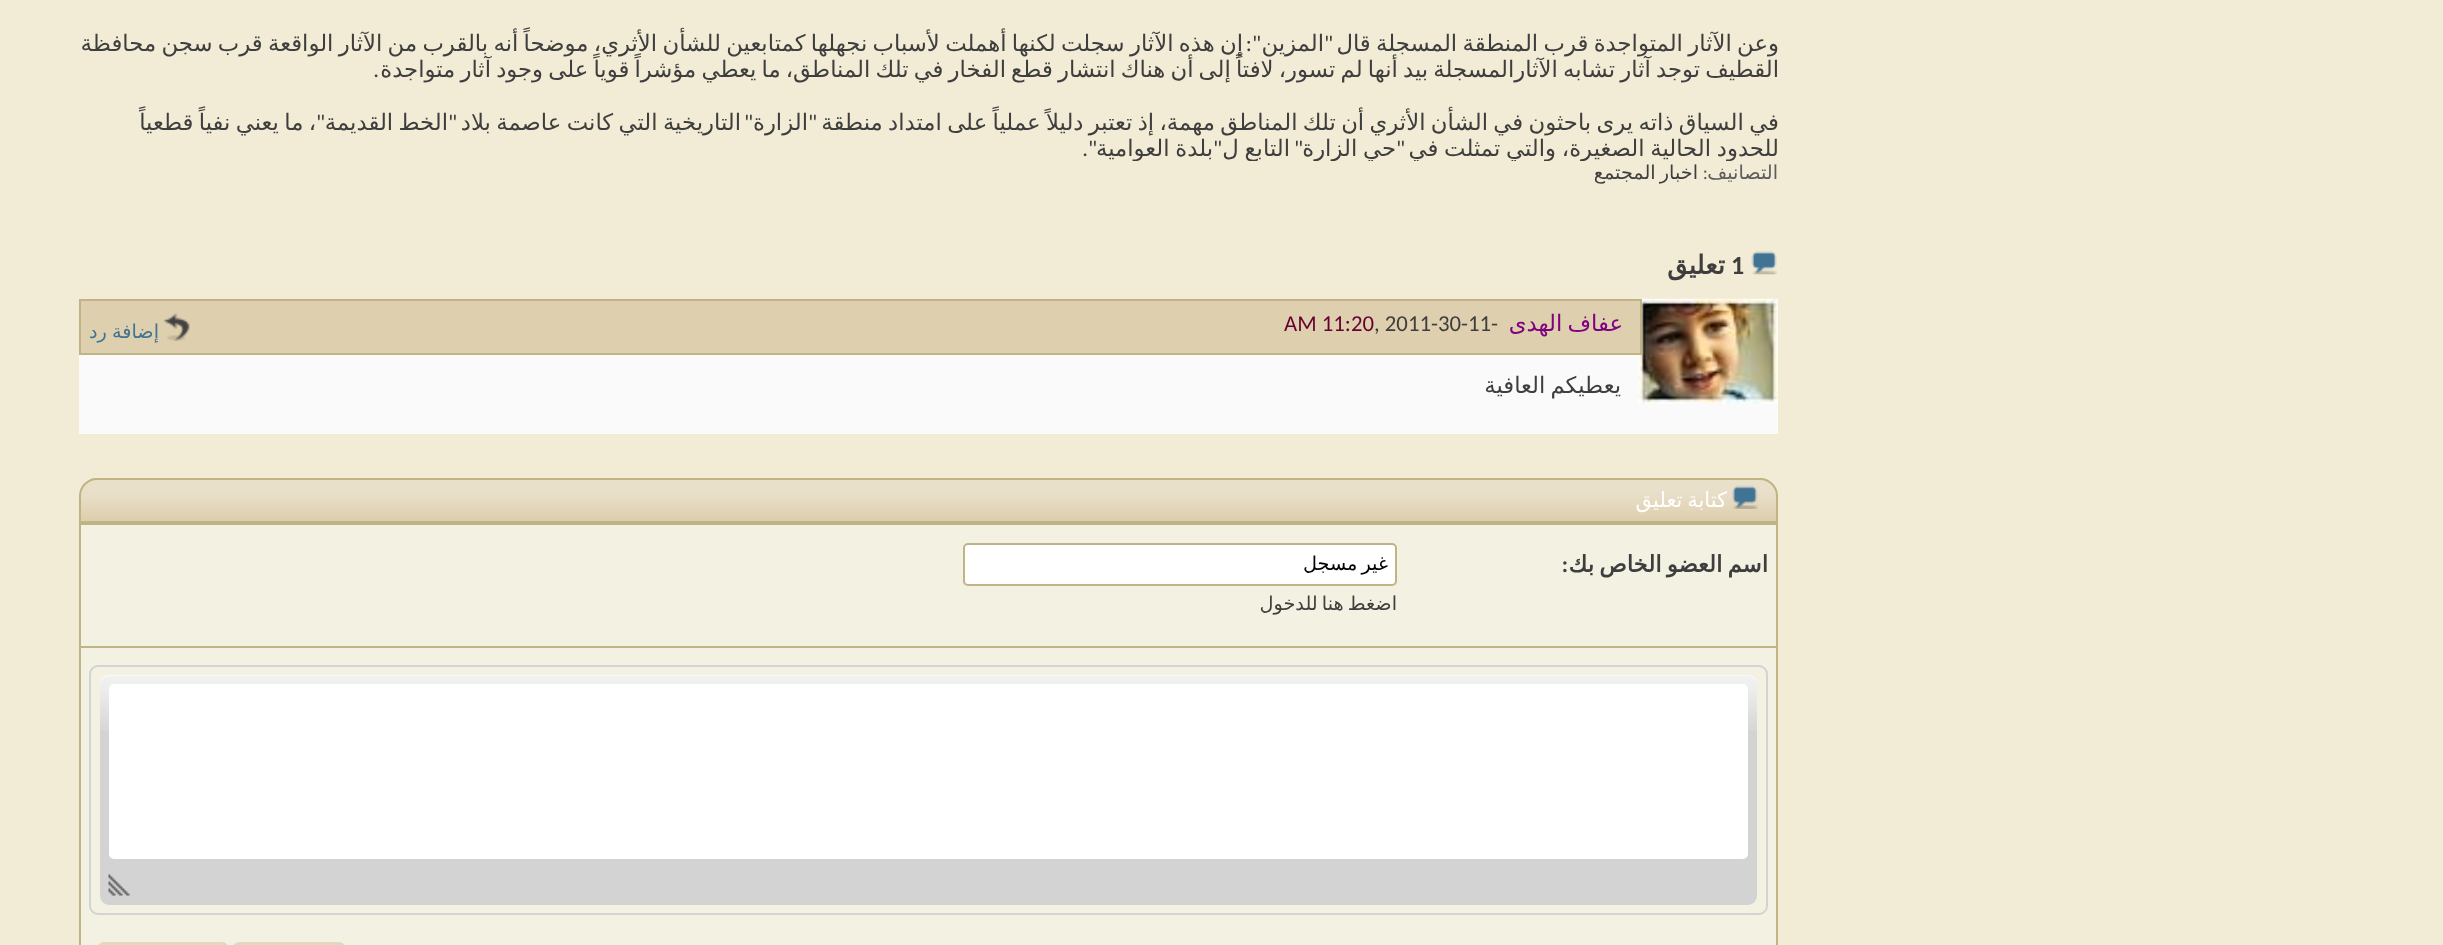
async function draw(canvas) {
  canvas.width = 2443
  canvas.height = 945
  const ctx = canvas.getContext('2d')
  ctx.miterLimit = 4
  ctx.fontKerning = 'normal'
  async function loadImage(src) {
    const img = new Image()
    img.src = src
    await img.decode()
    return img
  }

  ctx.fillStyle = '#f2ebd5'
  ctx.fillRect(0, 0, 2443, 945)
  ctx.save()
  ctx.beginPath()
  ctx.rect(79, 0, 1699, 161)
  ctx.clip()
  ctx.wordSpacing = '-1.9px'
  ctx.direction = 'rtl'
  ctx.font = '22.75px DejaVu Sans'
  ctx.fillStyle = '#3e3e3e'
  ctx.fillText('وعن الآثار المتواجدة قرب المنطقة المسجلة قال', 1779, 51)
  ctx.restore()
  ctx.direction = 'rtl'
  ctx.font = '22.75px Carlito'
  ctx.fillStyle = '#3e3e3e'
  ctx.fillText('"', 1333, 51)
  ctx.font = '22.75px DejaVu Sans'
  ctx.fillText('المزين', 1324, 51)
  ctx.wordSpacing = '-1.9px'
  ctx.fillText('إن هذه الآثار سجلت لكنها أهملت لأسباب نجهلها كمتابعين للشأن الأثري، موضحاً أنه بالقرب من الآثار الواقعة قرب سجن محافظة', 1243, 51)
  ctx.wordSpacing = '0px'
  ctx.font = '22.75px Carlito'
  ctx.fillText('":', 1261, 51)
  ctx.save()
  ctx.beginPath()
  ctx.rect(79, 0, 1699, 161)
  ctx.clip()
  ctx.wordSpacing = '-2.1px'
  ctx.font = '22.75px DejaVu Sans'
  ctx.fillText('القطيف توجد آثار تشابه الآثارالمسجلة بيد أنها لم تسور، لافتاً إلى أن هناك انتشار قطع الفخار في تلك المناطق، ما يعطي مؤشراً قوياً على وجود آثار متواجدة', 1779, 77)
  ctx.restore()
  ctx.fillText('.', 379, 77)
  ctx.save()
  ctx.beginPath()
  ctx.rect(79, 0, 1699, 161)
  ctx.clip()
  ctx.wordSpacing = '-1.9px'
  ctx.font = '22.75px DejaVu Sans'
  ctx.fillText('في السياق ذاته يرى باحثون في الشأن الأثري أن تلك المناطق مهمة، إذ تعتبر دليلاً عملياً على امتداد منطقة', 1779, 130)
  ctx.restore()
  ctx.font = '22.75px DejaVu Sans'
  ctx.fillText('الزارة', 808, 130)
  ctx.wordSpacing = '-1.9px'
  ctx.fillText('التاريخية التي كانت عاصمة بلاد', 741, 130)
  ctx.fillText('الخط القديمة', 448, 130)
  ctx.fillText('، ما يعني نفياً قطعياً', 316, 130)
  ctx.wordSpacing = '0px'
  ctx.font = '22.75px Carlito'
  ctx.fillText('"', 817, 130)
  ctx.fillText('"', 753, 130)
  ctx.fillText('"', 457, 130)
  ctx.fillText('"', 325, 130)
  ctx.save()
  ctx.beginPath()
  ctx.rect(79, 0, 1699, 161)
  ctx.clip()
  ctx.wordSpacing = '-1.5px'
  ctx.font = '22.75px DejaVu Sans'
  ctx.fillText('للحدود الحالية الصغيرة، والتي تمثلت في', 1779, 156)
  ctx.restore()
  ctx.fillText('"', 1405, 156)
  ctx.save()
  ctx.beginPath()
  ctx.rect(79, 0, 1699, 161)
  ctx.clip()
  ctx.wordSpacing = '-1.5px'
  ctx.font = '22.75px DejaVu Sans'
  ctx.fillText('حي الزارة', 1396, 156)
  ctx.restore()
  ctx.fillText('"', 1303, 156)
  ctx.save()
  ctx.beginPath()
  ctx.rect(79, 0, 1699, 161)
  ctx.clip()
  ctx.wordSpacing = '-1.5px'
  ctx.font = '22.75px DejaVu Sans'
  ctx.fillText('التابع ل', 1290, 156)
  ctx.restore()
  ctx.fillText('"', 1222, 156)
  ctx.save()
  ctx.beginPath()
  ctx.rect(79, 0, 1699, 161)
  ctx.clip()
  ctx.wordSpacing = '-1.5px'
  ctx.font = '22.75px DejaVu Sans'
  ctx.fillText('بلدة العوامية', 1213, 156)
  ctx.restore()
  ctx.fillText('".', 1097, 156)
  ctx.font = '19.25px DejaVu Sans'
  ctx.fillStyle = '#5d5d5d'
  ctx.fillText('التصانيف', 1778, 179)
  ctx.font = '19.25px Carlito'
  ctx.fillText(':', 1708, 179)
  ctx.wordSpacing = '-2px'
  ctx.font = '19.25px DejaVu Sans'
  ctx.fillStyle = '#3e3e3e'
  ctx.fillText('اخبار المجتمع', 1698, 179)
  ctx.drawImage(await loadImage('image0.png'), 1751, 251, 27, 24)
  ctx.wordSpacing = '0px'
  ctx.direction = 'ltr'
  ctx.font = 'bold 26px Carlito'
  ctx.fillText('1', 1731, 274)
  ctx.direction = 'rtl'
  ctx.font = 'bold 26px DejaVu Sans'
  ctx.fillText('تعليق', 1725, 274)
  ctx.fillStyle = '#fafafa'
  ctx.fillRect(79, 355, 1699, 79)
  ctx.drawImage(await loadImage('image1.png'), 1638, 298, 140, 106)
  ctx.fillStyle = '#decfae'
  ctx.beginPath()
  ctx.rect(80, 300, 1561, 54)
  ctx.fill()
  ctx.strokeStyle = '#c0b385'
  ctx.lineWidth = 2
  ctx.stroke()
  ctx.wordSpacing = '-2.1px'
  ctx.font = '22.75px DejaVu Sans'
  ctx.fillStyle = '#800080'
  ctx.fillText('عفاف الهدى', 1623, 331)
  ctx.wordSpacing = '0px'
  ctx.direction = 'ltr'
  ctx.font = '22.75px Carlito'
  ctx.fillStyle = '#3e3e3e'
  ctx.fillText('-', 1491, 331)
  ctx.fillText(', 2011-30-11', 1374, 331)
  ctx.fillStyle = '#603'
  ctx.fillText('AM 11:20', 1284, 331)
  ctx.drawImage(await loadImage('image2.png'), 163, 313, 27, 28)
  ctx.wordSpacing = '-1px'
  ctx.direction = 'rtl'
  ctx.font = '19.25px DejaVu Sans'
  ctx.fillStyle = '#417394'
  ctx.fillText('إضافة رد', 159, 338)
  ctx.wordSpacing = '-2.1px'
  ctx.font = '22.75px DejaVu Sans'
  ctx.fillStyle = '#3e3e3e'
  ctx.fillText('يعطيكم العافية', 1621, 393)
  ctx.fillStyle = '#decfae'
  ctx.beginPath()
  ctx.roundRect(79, 478, 1699, 45, [18, 18, 0, 0])
  ctx.fill()
  ctx.drawImage(await loadImage('image3.png'), 79, 479, 1699, 37)
  ctx.beginPath()
  ctx.roundRect(80, 479, 1697, 43, [17, 17, 0, 0])
  ctx.stroke()
  ctx.drawImage(await loadImage('image4.png'), 1732, 485, 26, 24)
  ctx.wordSpacing = '-1.9px'
  ctx.font = '21px DejaVu Sans'
  ctx.fillStyle = '#fff'
  ctx.fillText('كتابة تعليق', 1727, 507)
  ctx.fillStyle = '#f3f1e2'
  ctx.fillRect(81, 525, 1695, 420)
  ctx.fillStyle = '#c0b385'
  ctx.fillRect(1776, 523, 2, 422)
  ctx.fillRect(79, 523, 2, 422)
  ctx.fillRect(81, 523, 1695, 2)
  ctx.wordSpacing = '-2.1px'
  ctx.font = 'bold 22.75px DejaVu Sans'
  ctx.fillStyle = '#3e3e3e'
  ctx.fillText('اسم العضو الخاص بك', 1768, 572)
  ctx.wordSpacing = '0px'
  ctx.font = 'bold 22.75px Carlito'
  ctx.fillText(':', 1568, 572)
  ctx.fillStyle = '#fff'
  ctx.beginPath()
  ctx.roundRect(964, 544, 432, 41, 4)
  ctx.fill()
  ctx.stroke()
  ctx.save()
  ctx.beginPath()
  ctx.rect(971, 553, 417, 23)
  ctx.clip()
  ctx.wordSpacing = '-2px'
  ctx.font = '19.25px DejaVu Sans'
  ctx.fillStyle = '#000'
  ctx.fillText('غير مسجل', 1388, 570)
  ctx.restore()
  ctx.save()
  ctx.beginPath()
  ctx.rect(529, 592, 868, 28)
  ctx.clip()
  ctx.wordSpacing = '-2px'
  ctx.font = '19.25px DejaVu Sans'
  ctx.fillStyle = '#3e3e3e'
  ctx.fillText('اضغط هنا للدخول', 1397, 610)
  ctx.restore()
  ctx.fillStyle = '#c0b385'
  ctx.fillRect(81, 646, 1695, 2)
  ctx.beginPath()
  ctx.roundRect(90, 666, 1677, 248, 8)
  ctx.strokeStyle = '#d3d3d3'
  ctx.stroke()
  ctx.fillStyle = '#d3d3d3'
  ctx.beginPath()
  ctx.roundRect(100, 676, 1657, 229, 9)
  ctx.fill()
  ctx.drawImage(await loadImage('image5.png'), 100, 675, 1657, 56)
  ctx.fillStyle = '#fff'
  ctx.beginPath()
  ctx.roundRect(109, 684, 1639, 175, 5)
  ctx.fill()
  ctx.drawImage(await loadImage('image6.png'), 108, 874, 22, 22)
  ctx.fillStyle = '#decfae'
  ctx.beginPath()
  ctx.roundRect(233, 942, 112, 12, 9)
  ctx.fill()
  ctx.drawImage(await loadImage('image7.png'), 235, 941, 108, 4)
  ctx.beginPath()
  ctx.roundRect(98, 942, 130, 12, 9)
  ctx.fill()
  ctx.drawImage(await loadImage('image8.png'), 100, 941, 126, 4)
}

draw(document.querySelector('canvas'))
